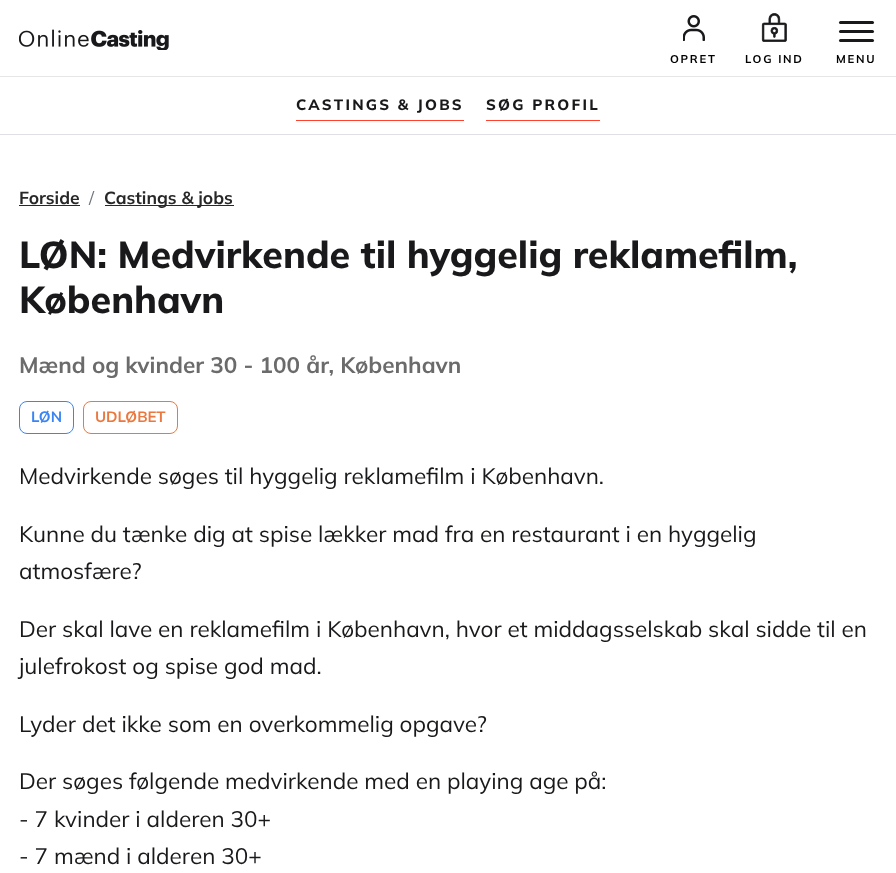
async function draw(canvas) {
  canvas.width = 896
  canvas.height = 873
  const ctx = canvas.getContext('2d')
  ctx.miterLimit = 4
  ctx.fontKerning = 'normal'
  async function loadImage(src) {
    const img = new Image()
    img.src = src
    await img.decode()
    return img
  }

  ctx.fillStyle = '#fff'
  ctx.fillRect(0, 0, 896, 873)
  ctx.fillStyle = '#e6e6e6'
  ctx.fillRect(0, 76, 896, 1)
  ctx.drawImage(await loadImage('image0.png'), 19, 29, 150, 21)
  ctx.drawImage(await loadImage('image1.png'), 683, 15, 22, 26)
  ctx.letterSpacing = '1.75px'
  ctx.font = 'bold 11.25px Mulish'
  ctx.fillStyle = '#000'
  ctx.fillText('OPRET', 670, 63)
  ctx.drawImage(await loadImage('image2.png'), 761, 13, 26, 29)
  ctx.fillText('LOG IND', 745, 63)
  ctx.fillStyle = '#19191c'
  ctx.beginPath()
  ctx.roundRect(839, 21, 35, 3, 1.5)
  ctx.fill()
  ctx.beginPath()
  ctx.roundRect(839, 30, 35, 3, 1.5)
  ctx.fill()
  ctx.beginPath()
  ctx.roundRect(839, 39, 35, 3, 1.5)
  ctx.fill()
  ctx.fillStyle = '#000'
  ctx.fillText('MENU', 836, 63)
  ctx.fillStyle = '#dfdfe8'
  ctx.fillRect(0, 134, 896, 1)
  ctx.letterSpacing = '2.25px'
  ctx.font = '800 15px Mulish'
  ctx.fillStyle = '#19191c'
  ctx.fillText('CASTINGS & JOBS', 296, 110)
  ctx.fillStyle = '#ff422e'
  ctx.fillRect(296, 120, 168, 1)
  ctx.fillStyle = '#19191c'
  ctx.fillText('SØG PROFIL', 486, 110)
  ctx.fillStyle = '#ff422e'
  ctx.fillRect(486, 120, 114, 1)
  ctx.letterSpacing = '0px'
  ctx.font = 'bold 17.5px Mulish'
  ctx.fillStyle = '#272727'
  ctx.fillText('Forside', 19, 204)
  ctx.fillRect(19, 205, 61, 1)
  ctx.font = '17.5px Mulish'
  ctx.fillStyle = '#6c757d'
  ctx.fillText('/', 89, 204)
  ctx.fillStyle = '#272727'
  ctx.fillRect(105, 205, 129, 1)
  ctx.font = 'bold 17.5px Mulish'
  ctx.fillText('Castings & jobs', 104, 204)
  ctx.font = '800 37.5px Mulish'
  ctx.fillStyle = '#19191c'
  ctx.fillText('LØN: Medvirkende til hyggelig reklamefilm,', 19, 268)
  ctx.fillText('København', 19, 313)
  ctx.font = 'bold 22.5px Mulish'
  ctx.fillStyle = '#6b6b6b'
  ctx.fillText('Mænd og kvinder 30 - 100 år, København', 19, 373)
  ctx.beginPath()
  ctx.roundRect(19.5, 401.5, 54, 32, 7.5)
  ctx.strokeStyle = '#3a84f4'
  ctx.stroke()
  ctx.font = 'bold 15px Mulish'
  ctx.fillStyle = '#3a84f4'
  ctx.fillText('LØN', 31, 422)
  ctx.beginPath()
  ctx.roundRect(83.5, 401.5, 94, 32, 7.5)
  ctx.strokeStyle = '#eb783e'
  ctx.stroke()
  ctx.fillStyle = '#eb783e'
  ctx.fillText('UDLØBET', 95, 422)
  ctx.font = '22.5px Mulish'
  ctx.fillStyle = '#19191c'
  ctx.fillText('Medvirkende søges til hyggelig reklamefilm i København.', 19, 484)
  ctx.fillText('Kunne du tænke dig at spise lækker mad fra en restaurant i en hyggelig', 19, 542)
  ctx.fillText('atmosfære?', 19, 579)
  ctx.fillText('Der skal lave en reklamefilm i København, hvor et middagsselskab skal sidde til en', 19, 637)
  ctx.fillText('julefrokost og spise god mad.', 19, 674)
  ctx.fillText('Lyder det ikke som en overkommelig opgave?', 19, 732)
  ctx.fillText('Der søges følgende medvirkende med en playing age på:', 19, 789)
  ctx.fillText('- 7 kvinder i alderen 30+', 19, 827)
  ctx.fillText('- 7 mænd i alderen 30+', 19, 864)
}

draw(document.querySelector('canvas'))
